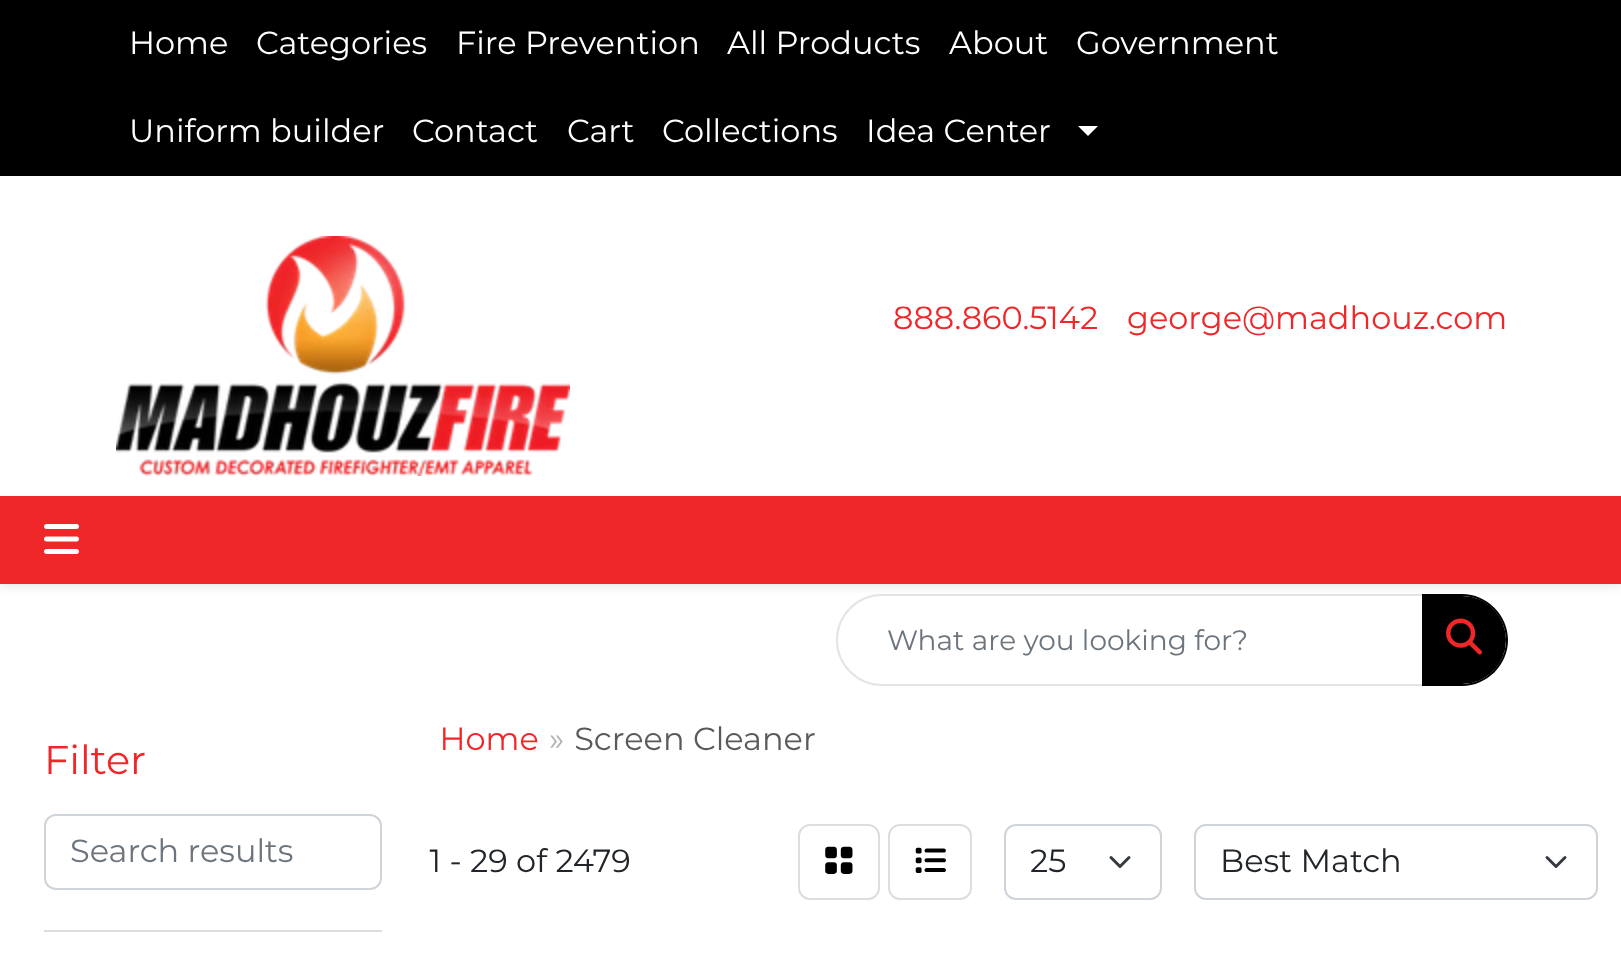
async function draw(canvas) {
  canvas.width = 1621
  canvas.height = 959
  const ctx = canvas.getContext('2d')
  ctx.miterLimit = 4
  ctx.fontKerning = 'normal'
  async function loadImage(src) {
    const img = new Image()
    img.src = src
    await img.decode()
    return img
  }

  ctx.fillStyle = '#fff'
  ctx.fillRect(0, 0, 1621, 959)
  ctx.fillStyle = '#000'
  ctx.fillRect(0, 0, 1621, 176)
  ctx.font = '32px Montserrat'
  ctx.fillStyle = '#fff'
  ctx.fillText('Home', 129, 54)
  ctx.fillText('Categories', 256, 54)
  ctx.fillText('Fire Prevention', 456, 54)
  ctx.fillText('All Products', 727, 54)
  ctx.fillText('About', 949, 54)
  ctx.fillText('Government', 1076, 54)
  ctx.fillText('Uniform builder', 129, 142)
  ctx.fillText('Contact', 412, 142)
  ctx.fillText('Cart', 567, 142)
  ctx.fillText('Collections', 662, 142)
  ctx.fillText('Idea Center', 866, 142)
  ctx.beginPath()
  ctx.moveTo(1078, 126)
  ctx.lineTo(1098, 126)
  ctx.lineTo(1088, 136)
  ctx.closePath()
  ctx.fill()
  ctx.drawImage(await loadImage('image0.png'), 116, 236, 454, 240)
  ctx.fillStyle = '#ef2729'
  ctx.fillText('888.860.5142', 893, 329)
  ctx.fillText('george@madhouz.com', 1127, 329)
  ctx.fillStyle = '#00000012'
  ctx.filter = 'blur(4px)'
  ctx.beginPath()
  ctx.rect(0, 500, 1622, 88)
  ctx.fill()
  ctx.filter = 'none'
  ctx.fillStyle = '#ef2729'
  ctx.fillRect(0, 496, 1621, 88)
  ctx.drawImage(await loadImage('image1.png'), 44, 524, 35, 30)
  ctx.beginPath()
  ctx.roundRect(837, 595, 586, 90, [45, 0, 0, 45])
  ctx.strokeStyle = '#e4e4e4'
  ctx.lineWidth = 2
  ctx.stroke()
  ctx.font = '28px Montserrat'
  ctx.fillStyle = '#6c757d'
  ctx.fillText('What are you looking for?', 887, 650)
  ctx.fillStyle = '#000'
  ctx.beginPath()
  ctx.roundRect(1422, 596, 84, 88, [0, 44, 44, 0])
  ctx.fill()
  ctx.beginPath()
  ctx.moveTo(1422, 594)
  ctx.lineTo(1462, 594)
  ctx.bezierCurveTo(1487, 594, 1508, 615, 1508, 640)
  ctx.bezierCurveTo(1508, 665, 1487, 686, 1462, 686)
  ctx.lineTo(1422, 686)
  ctx.closePath()
  ctx.moveTo(1422, 596)
  ctx.lineTo(1462, 596)
  ctx.bezierCurveTo(1486, 596, 1506, 616, 1506, 640)
  ctx.bezierCurveTo(1506, 664, 1486, 684, 1462, 684)
  ctx.lineTo(1422, 684)
  ctx.closePath()
  ctx.fill('evenodd')
  ctx.drawImage(await loadImage('image2.png'), 1446, 618, 36, 37)
  ctx.drawImage(await loadImage('image3.png'), 44, 726, 1554, 206)
}

draw(document.querySelector('canvas'))
